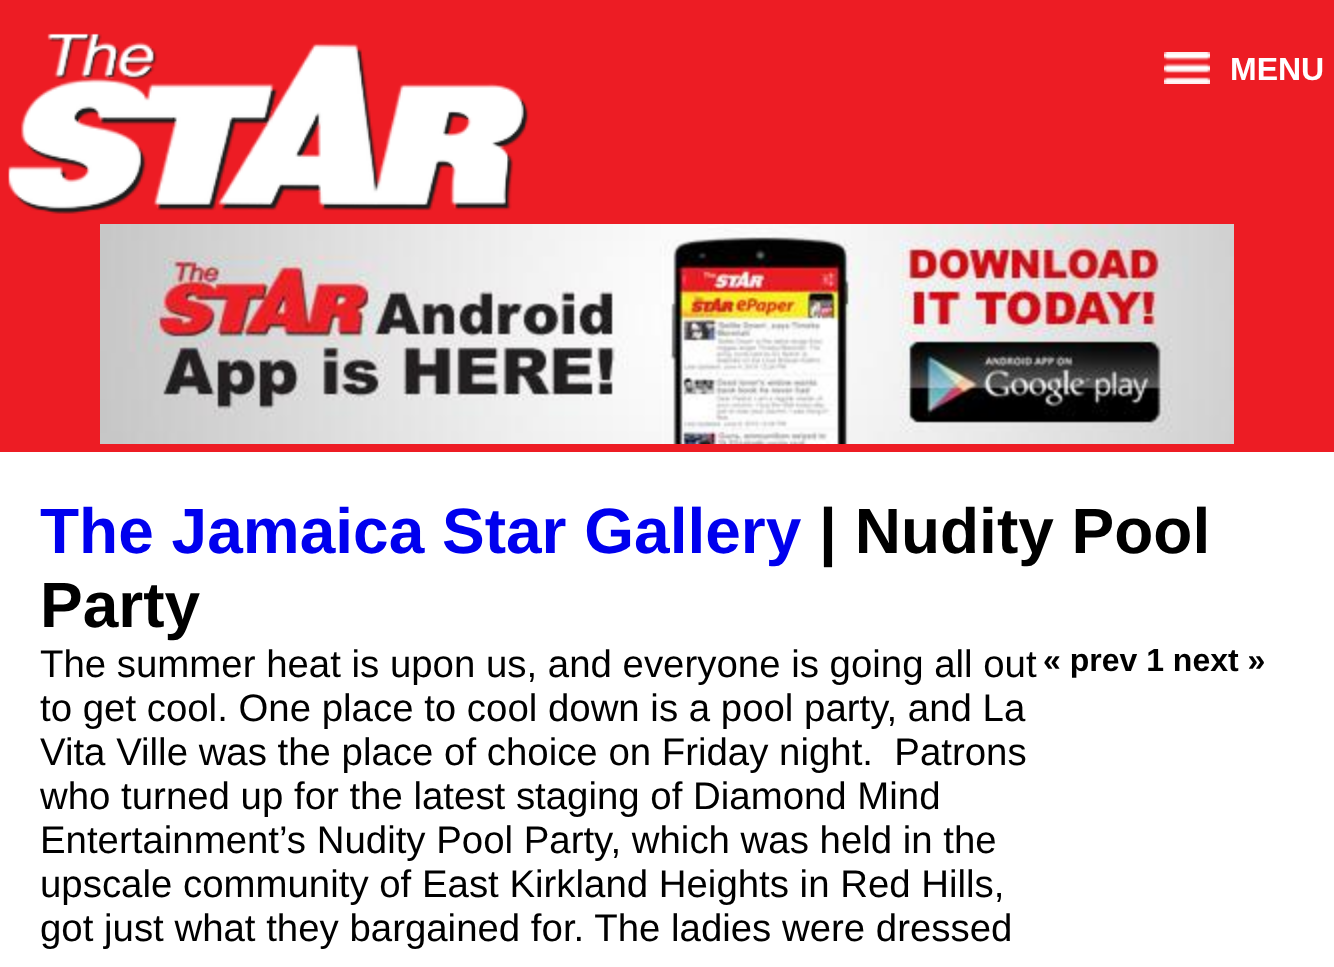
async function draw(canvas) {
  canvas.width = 1334
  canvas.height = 967
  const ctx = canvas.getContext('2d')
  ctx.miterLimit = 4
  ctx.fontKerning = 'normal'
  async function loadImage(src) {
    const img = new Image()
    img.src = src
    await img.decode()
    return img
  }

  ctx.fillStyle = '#ed1c24'
  ctx.fillRect(0, 0, 1334, 967)
  ctx.drawImage(await loadImage('image0.png'), 8, 33, 521, 181)
  ctx.drawImage(await loadImage('image1.png'), 1164, 52, 46, 32)
  ctx.font = 'bold 32px Liberation Sans'
  ctx.fillStyle = '#fff'
  ctx.fillText('MENU', 1230, 80)
  ctx.drawImage(await loadImage('image2.png'), 100, 224, 1134, 220)
  ctx.fillRect(0, 452, 1334, 515)
  ctx.font = 'bold 64px Liberation Sans'
  ctx.fillStyle = '#00e'
  ctx.fillText('The Jamaica Star Gallery', 40, 553)
  ctx.fillStyle = '#000'
  ctx.fillText('| Nudity Pool', 819, 553)
  ctx.fillText('Party', 40, 627)
  ctx.font = '38.4px Liberation Sans'
  ctx.fillText('The summer heat is upon us, and everyone is going all out', 40, 677)
  ctx.fillText('to get cool. One place to cool down is a pool party, and La', 40, 721)
  ctx.fillText('Vita Ville was the place of choice on Friday night.  Patrons', 40, 765)
  ctx.fillText('who turned up for the latest staging of Diamond Mind', 40, 809)
  ctx.fillText('Entertainment’s Nudity Pool Party, which was held in the', 40, 853)
  ctx.fillText('upscale community of East Kirkland Heights in Red Hills,', 40, 897)
  ctx.fillText('got just what they bargained for. The ladies were dressed', 40, 941)
  ctx.font = 'bold 32px Liberation Sans'
  ctx.fillText('« prev 1 next »', 1043, 671)
}

draw(document.querySelector('canvas'))
